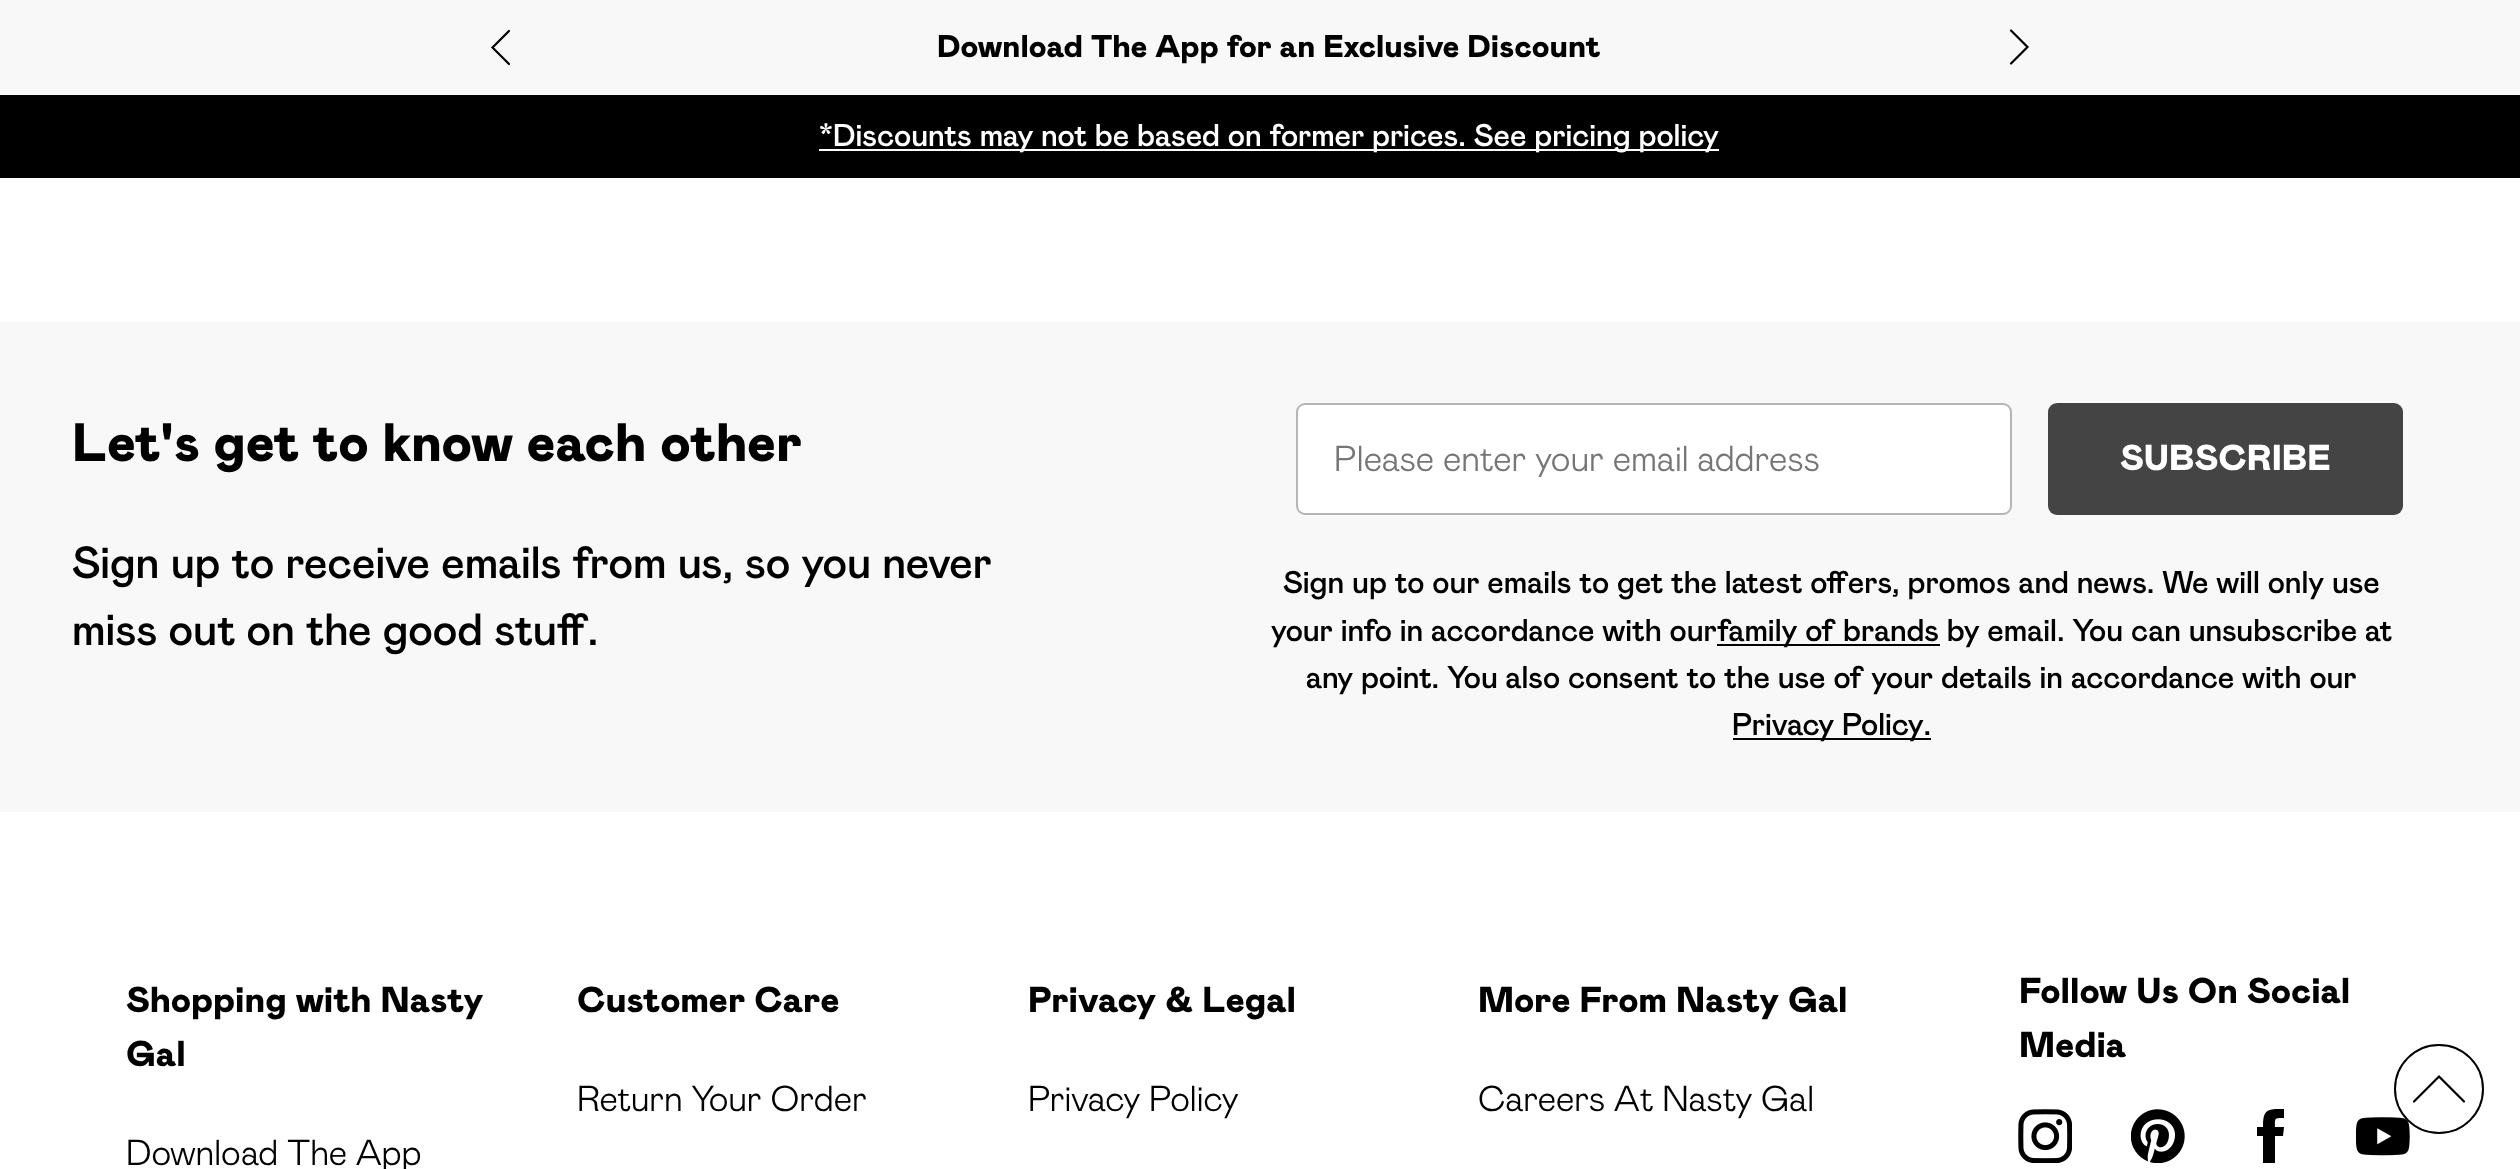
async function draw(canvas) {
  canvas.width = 2520
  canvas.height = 1169
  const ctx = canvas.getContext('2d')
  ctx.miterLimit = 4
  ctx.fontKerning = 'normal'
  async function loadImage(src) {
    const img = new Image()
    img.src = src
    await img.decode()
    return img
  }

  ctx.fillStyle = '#fff'
  ctx.fillRect(0, 0, 2520, 1169)
  ctx.fillStyle = '#f8f8f8'
  ctx.fillRect(0, 0, 2520, 95)
  ctx.beginPath()
  ctx.moveTo(509, 31)
  ctx.lineTo(492.5, 47.5)
  ctx.lineTo(509, 64)
  ctx.strokeStyle = '#000'
  ctx.lineWidth = 2.2
  ctx.lineCap = 'round'
  ctx.stroke()
  ctx.font = '31.5px "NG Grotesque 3"'
  ctx.fillStyle = '#000'
  ctx.fillText('Download The App for an Exclusive Discount', 937, 57)
  ctx.beginPath()
  ctx.moveTo(2011, 63.5)
  ctx.lineTo(2027.5, 47)
  ctx.lineTo(2011, 30.5)
  ctx.stroke()
  ctx.fillRect(0, 95, 2520, 83)
  ctx.fillStyle = '#fff'
  ctx.fillRect(819, 149, 900, 2)
  ctx.font = '31.5px "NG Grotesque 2"'
  ctx.fillText('*Discounts may not be based on former prices. See pricing policy', 819, 146)
  ctx.fillStyle = '#f8f8f8'
  ctx.fillRect(0, 322, 2520, 490)
  ctx.font = '54px "NG Grotesque 3"'
  ctx.fillStyle = '#000'
  ctx.fillText('Let\'s get to know each other', 72, 461)
  ctx.font = '45px "NG Grotesque 2"'
  ctx.fillText('Sign up to receive emails from us, so you never', 72, 578)
  ctx.fillText('miss out on the good stuff.', 72, 645)
  ctx.fillStyle = '#fff'
  ctx.beginPath()
  ctx.roundRect(1297, 404, 714, 110, 8)
  ctx.fill()
  ctx.strokeStyle = '#b5b5b5'
  ctx.lineWidth = 2
  ctx.stroke()
  ctx.save()
  ctx.beginPath()
  ctx.rect(1334, 439, 639, 38)
  ctx.clip()
  ctx.font = '36px "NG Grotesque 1"'
  ctx.fillStyle = '#767676'
  ctx.fillText('Please enter your email address', 1334, 471)
  ctx.restore()
  ctx.fillStyle = '#444'
  ctx.beginPath()
  ctx.roundRect(2048, 403, 355, 112, 9)
  ctx.fill()
  ctx.font = '36px "NG Grotesque 3"'
  ctx.fillStyle = '#fff'
  ctx.fillText('SUBSCRIBE', 2120, 470)
  ctx.font = '31.5px "NG Grotesque 2"'
  ctx.fillStyle = '#000'
  ctx.fillText('Sign up to our emails to get the latest offers, promos and news. We will only use', 1283, 593)
  ctx.fillText('your info in accordance with our', 1271, 641)
  ctx.fillRect(1717, 644, 223, 2)
  ctx.fillText('family of brands by email. You can unsubscribe at', 1717, 641)
  ctx.fillText('any point. You also consent to the use of your details in accordance with our', 1306, 688)
  ctx.fillRect(1733, 738, 198, 2)
  ctx.fillText('Privacy Policy.', 1732, 735)
  ctx.font = '36px "NG Grotesque 3"'
  ctx.fillText('Shopping with Nasty', 126, 1012)
  ctx.fillText('Gal', 126, 1066)
  ctx.font = '36px "NG Grotesque 1"'
  ctx.fillText('Download The App', 126, 1165)
  ctx.font = '36px "NG Grotesque 3"'
  ctx.fillText('Customer Care', 577, 1012)
  ctx.font = '36px "NG Grotesque 1"'
  ctx.fillText('Return Your Order', 577, 1111)
  ctx.font = '36px "NG Grotesque 3"'
  ctx.fillText('Privacy & Legal', 1028, 1012)
  ctx.font = '36px "NG Grotesque 1"'
  ctx.fillText('Privacy Policy', 1028, 1111)
  ctx.font = '36px "NG Grotesque 3"'
  ctx.fillText('More From Nasty Gal', 1478, 1012)
  ctx.font = '36px "NG Grotesque 1"'
  ctx.fillText('Careers At Nasty Gal', 1478, 1111)
  ctx.font = '36px "NG Grotesque 3"'
  ctx.fillText('Follow Us On Social', 2019, 1003)
  ctx.fillText('Media', 2019, 1057)
  ctx.drawImage(await loadImage('image0.png'), 2018, 1109, 54, 54)
  ctx.drawImage(await loadImage('image1.png'), 2131, 1109, 54, 54)
  ctx.beginPath()
  ctx.moveTo(2275, 1127)
  ctx.bezierCurveTo(2275, 1118, 2274, 1118, 2284, 1118)
  ctx.lineTo(2284, 1109)
  ctx.bezierCurveTo(2267, 1109, 2263, 1109, 2263, 1127)
  ctx.lineTo(2257, 1127)
  ctx.lineTo(2257, 1136)
  ctx.lineTo(2263, 1136)
  ctx.lineTo(2263, 1163)
  ctx.lineTo(2275, 1163)
  ctx.lineTo(2275, 1136)
  ctx.lineTo(2283, 1136)
  ctx.lineTo(2284, 1127)
  ctx.closePath()
  ctx.fill()
  ctx.drawImage(await loadImage('image2.png'), 2356, 1117, 54, 39)
  ctx.fillStyle = '#fff'
  ctx.beginPath()
  ctx.arc(2439, 1089, 44, 0, 2 * Math.PI)
  ctx.fill()
  ctx.strokeStyle = '#000'
  ctx.stroke()
  ctx.beginPath()
  ctx.moveTo(2464, 1101.5)
  ctx.lineTo(2439, 1076.5)
  ctx.lineTo(2414, 1101.5)
  ctx.lineWidth = 2.2
  ctx.stroke()
}

draw(document.querySelector('canvas'))
